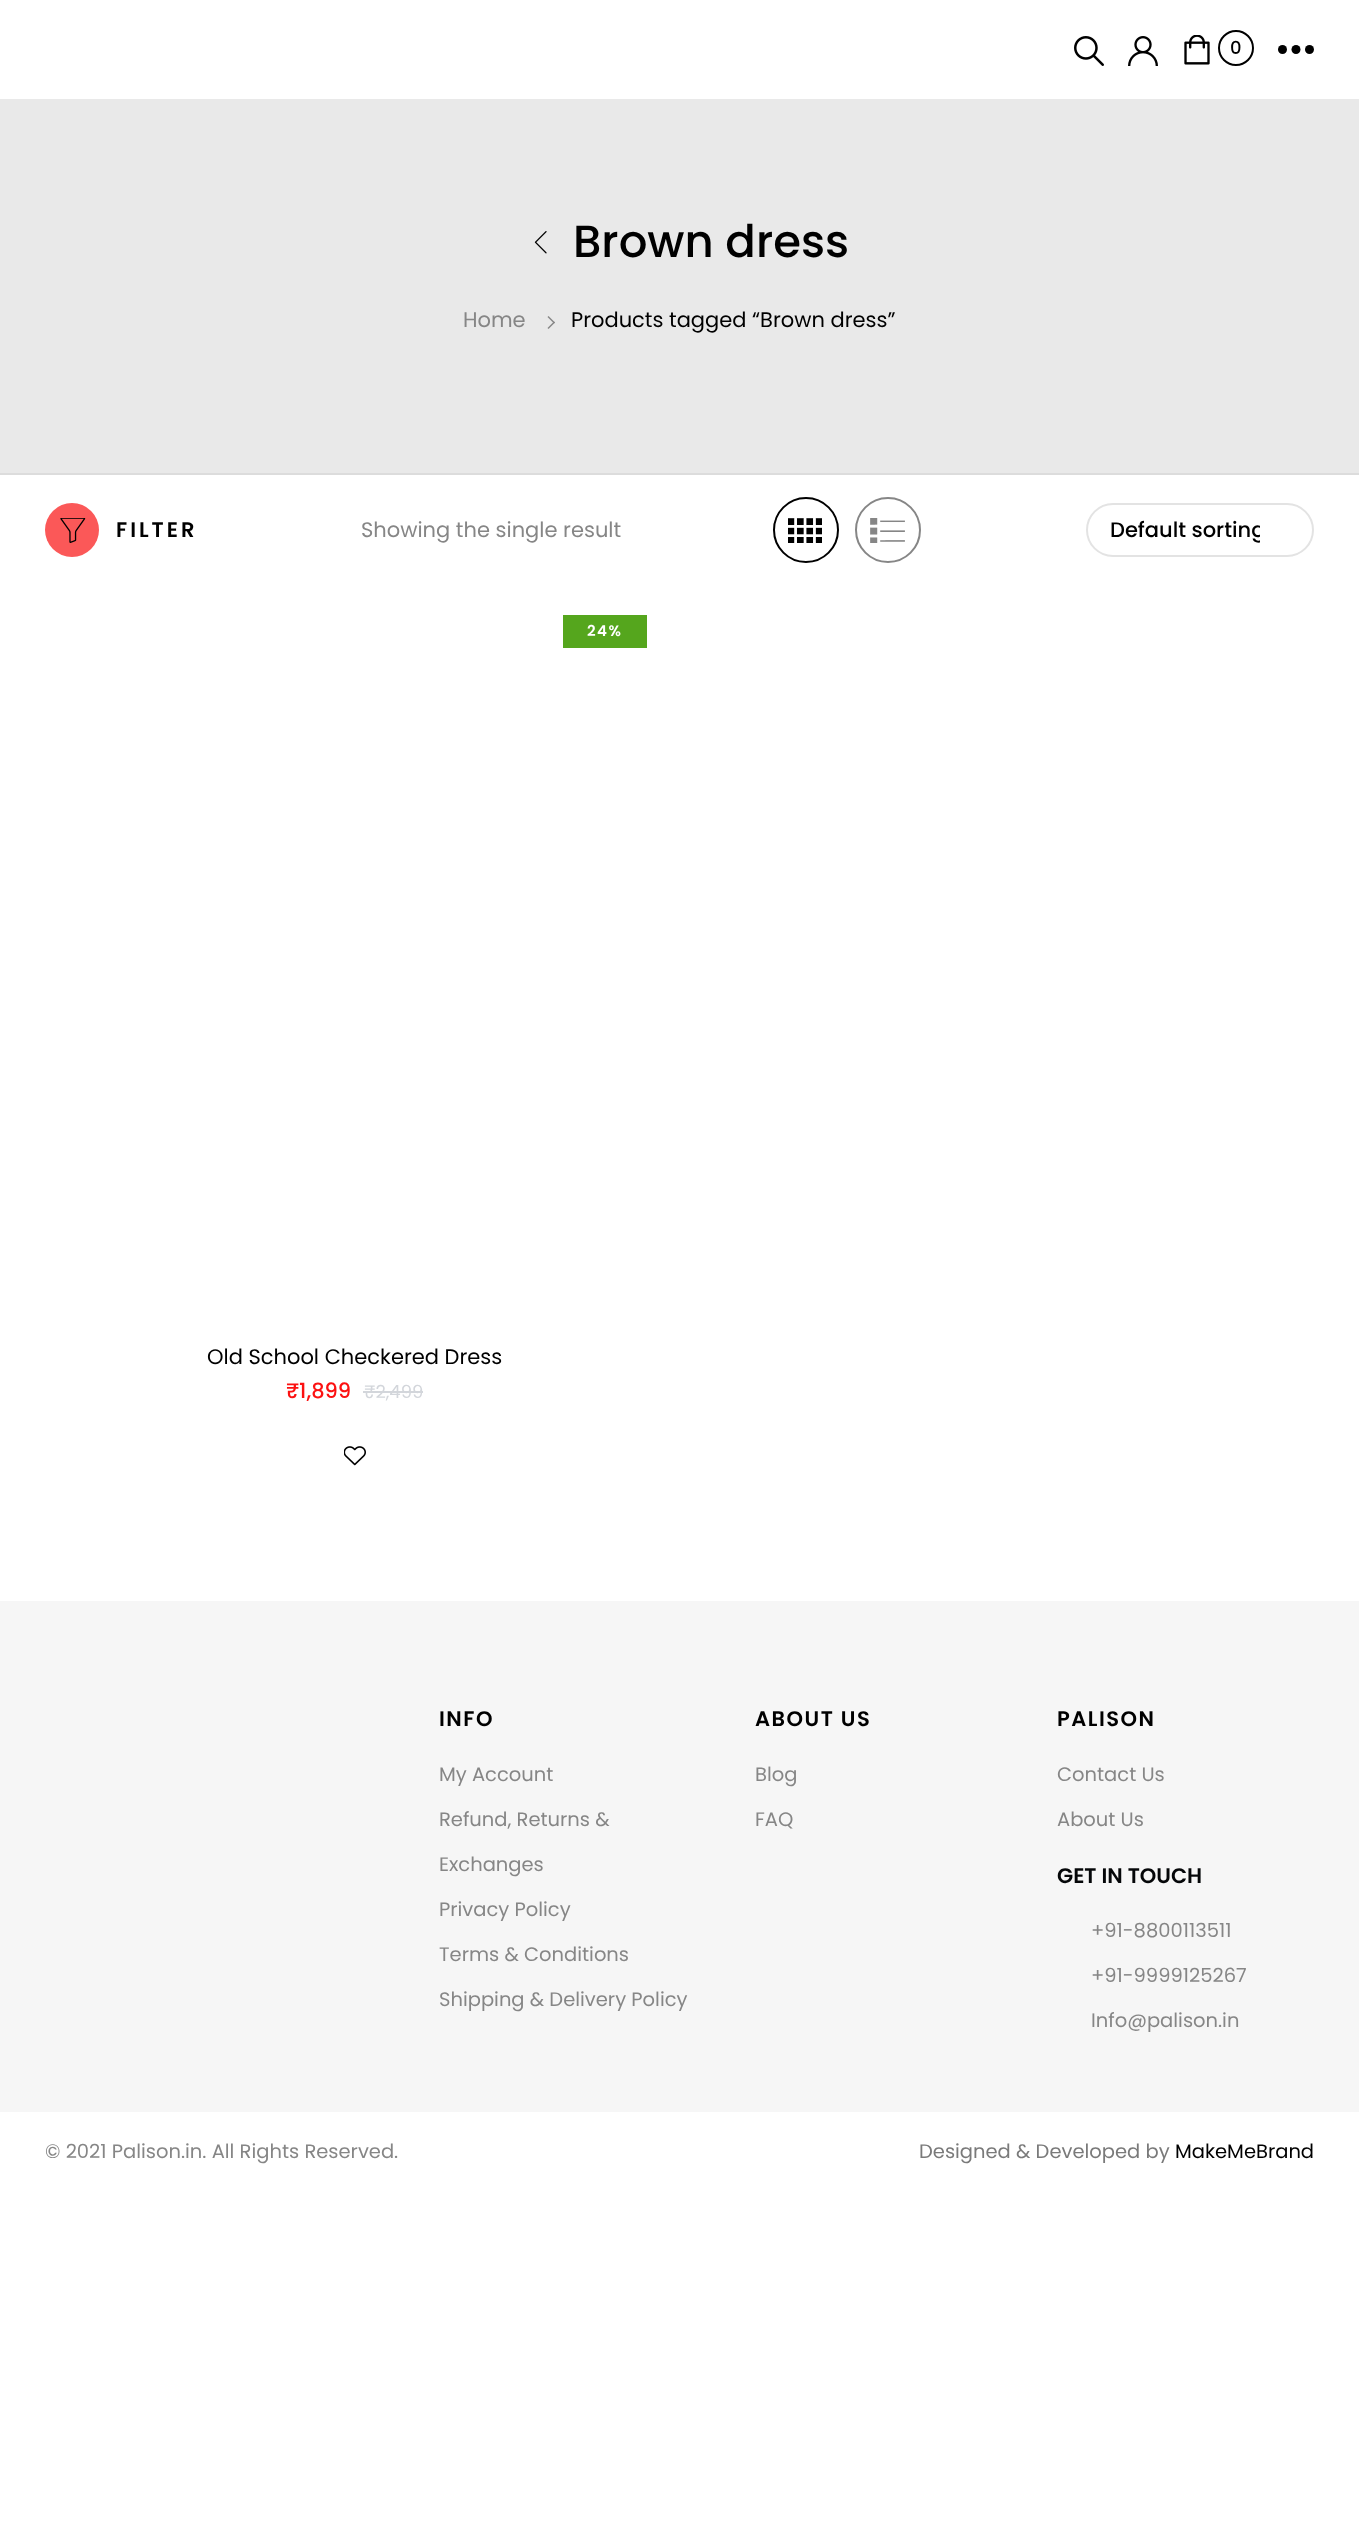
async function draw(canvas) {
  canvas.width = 1359
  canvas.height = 2541
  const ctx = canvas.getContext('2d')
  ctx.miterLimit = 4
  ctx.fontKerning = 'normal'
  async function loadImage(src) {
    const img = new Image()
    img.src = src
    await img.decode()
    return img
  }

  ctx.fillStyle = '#fff'
  ctx.fillRect(0, 0, 1359, 2541)
  ctx.drawImage(await loadImage('image0.png'), 1074, 36, 30, 30)
  ctx.drawImage(await loadImage('image1.png'), 1128, 36, 30, 30)
  ctx.drawImage(await loadImage('image2.png'), 1184, 35, 26, 30)
  ctx.beginPath()
  ctx.arc(1236, 48, 17, 0, 2 * Math.PI)
  ctx.strokeStyle = '#000'
  ctx.lineWidth = 2
  ctx.stroke()
  ctx.font = '500 18px Poppins'
  ctx.fillStyle = '#000'
  ctx.fillText('0', 1230, 54)
  ctx.beginPath()
  ctx.arc(1282.5, 49.5, 4.5, 0, 2 * Math.PI)
  ctx.fill()
  ctx.beginPath()
  ctx.arc(1296, 49.5, 4.5, 0, 2 * Math.PI)
  ctx.fill()
  ctx.beginPath()
  ctx.arc(1309.5, 49.5, 4.5, 0, 2 * Math.PI)
  ctx.fill()
  ctx.fillStyle = '#e9e9e9'
  ctx.fillRect(0, 99, 1359, 374)
  ctx.fillStyle = '#dcdcdc'
  ctx.fillRect(0, 473, 1359, 2)
  ctx.drawImage(await loadImage('image3.png'), 534, 231, 13, 23)
  ctx.font = '500 45px Poppins'
  ctx.fillStyle = '#000'
  ctx.fillText('Brown dress', 573, 257)
  ctx.font = '21px Poppins'
  ctx.fillStyle = '#868686'
  ctx.fillText('Home', 463, 327)
  ctx.beginPath()
  ctx.moveTo(548.5, 316)
  ctx.lineTo(555, 322.5)
  ctx.lineTo(554, 323.5)
  ctx.lineTo(547.5, 317)
  ctx.closePath()
  ctx.fill()
  ctx.beginPath()
  ctx.moveTo(554, 321.5)
  ctx.lineTo(555, 322.5)
  ctx.lineTo(548.5, 329)
  ctx.lineTo(547.5, 328)
  ctx.closePath()
  ctx.fill()
  ctx.fillStyle = '#000'
  ctx.fillText('Products tagged “Brown dress”', 571, 327)
  ctx.fillStyle = '#fb5858'
  ctx.beginPath()
  ctx.arc(72, 530, 27, 0, 2 * Math.PI)
  ctx.fill()
  ctx.drawImage(await loadImage('image4.png'), 60, 518, 26, 25)
  ctx.letterSpacing = '3px'
  ctx.font = '600 21px Poppins'
  ctx.fillStyle = '#000'
  ctx.fillText('FILTER', 116, 537)
  ctx.letterSpacing = '0px'
  ctx.font = '21px Poppins'
  ctx.fillStyle = '#868686'
  ctx.fillText('Showing the single result', 361, 537)
  ctx.beginPath()
  ctx.arc(806, 530, 32, 0, 2 * Math.PI)
  ctx.stroke()
  ctx.drawImage(await loadImage('image5.png'), 788, 518, 34, 25)
  ctx.beginPath()
  ctx.arc(888, 530, 32, 0, 2 * Math.PI)
  ctx.strokeStyle = '#868686'
  ctx.stroke()
  ctx.drawImage(await loadImage('image6.png'), 870, 518, 35, 25)
  ctx.beginPath()
  ctx.roundRect(1087, 504, 226, 52, 26)
  ctx.strokeStyle = '#e3e3e3'
  ctx.stroke()
  ctx.save()
  ctx.beginPath()
  ctx.rect(1110, 507, 150, 45)
  ctx.clip()
  ctx.font = '500 21px Poppins'
  ctx.fillStyle = '#000'
  ctx.fillText('Default sorting', 1110, 537)
  ctx.restore()
  ctx.fillStyle = '#55a61d'
  ctx.fillRect(563, 615, 84, 33)
  ctx.letterSpacing = '1.5px'
  ctx.font = '600 15px Poppins'
  ctx.fillStyle = '#fff'
  ctx.fillText('24%', 587, 636)
  ctx.letterSpacing = '0px'
  ctx.font = '21px Poppins'
  ctx.fillStyle = '#000'
  ctx.fillText('Old School Checkered Dress', 207, 1364)
  ctx.font = '500 21px Poppins'
  ctx.fillStyle = '#fc1111'
  ctx.fillText('₹1,899', 286, 1398)
  ctx.font = '18px Poppins'
  ctx.fillStyle = '#d3d6db'
  ctx.fillText('₹2,499', 364, 1398)
  ctx.fillRect(363, 1391, 60, 2)
  ctx.drawImage(await loadImage('image7.png'), 344, 1446, 22, 20)
  ctx.fillStyle = '#f6f6f6'
  ctx.fillRect(0, 1601, 1359, 511)
  ctx.letterSpacing = '1.5px'
  ctx.font = '600 21px Poppins'
  ctx.fillStyle = '#000'
  ctx.fillText('INFO', 439, 1726)
  ctx.letterSpacing = '0px'
  ctx.font = '19.5px Poppins'
  ctx.fillStyle = '#868686'
  ctx.fillText('My Account', 439, 1781)
  ctx.fillText('Refund, Returns &', 439, 1826)
  ctx.fillText('Exchanges', 439, 1871)
  ctx.fillText('Privacy Policy', 439, 1916)
  ctx.fillText('Terms & Conditions', 439, 1961)
  ctx.fillText('Shipping & Delivery Policy', 439, 2006)
  ctx.letterSpacing = '1.5px'
  ctx.font = '600 21px Poppins'
  ctx.fillStyle = '#000'
  ctx.fillText('ABOUT US', 755, 1726)
  ctx.letterSpacing = '0px'
  ctx.font = '19.5px Poppins'
  ctx.fillStyle = '#868686'
  ctx.fillText('Blog', 755, 1781)
  ctx.fillText('FAQ', 755, 1826)
  ctx.letterSpacing = '1.5px'
  ctx.font = '600 21px Poppins'
  ctx.fillStyle = '#000'
  ctx.fillText('PALISON', 1057, 1726)
  ctx.letterSpacing = '0px'
  ctx.font = '19.5px Poppins'
  ctx.fillStyle = '#868686'
  ctx.fillText('Contact Us', 1057, 1781)
  ctx.fillText('About Us', 1057, 1826)
  ctx.font = '600 21px Poppins'
  ctx.fillStyle = '#050709'
  ctx.fillText('GET IN TOUCH', 1057, 1883)
  ctx.font = '19.5px Poppins'
  ctx.fillStyle = '#868686'
  ctx.fillText('+91-8800113511', 1091, 1937)
  ctx.fillText('+91-9999125267', 1091, 1982)
  ctx.fillText('Info@palison.in', 1091, 2027)
  ctx.fillText('© 2021 Palison.in. All Rights Reserved.', 45, 2158)
  ctx.fillStyle = '#7a7a7a'
  ctx.fillText('Designed & Developed by', 919, 2158)
  ctx.fillStyle = '#000'
  ctx.fillText('MakeMeBrand', 1175, 2158)
}

draw(document.querySelector('canvas'))
